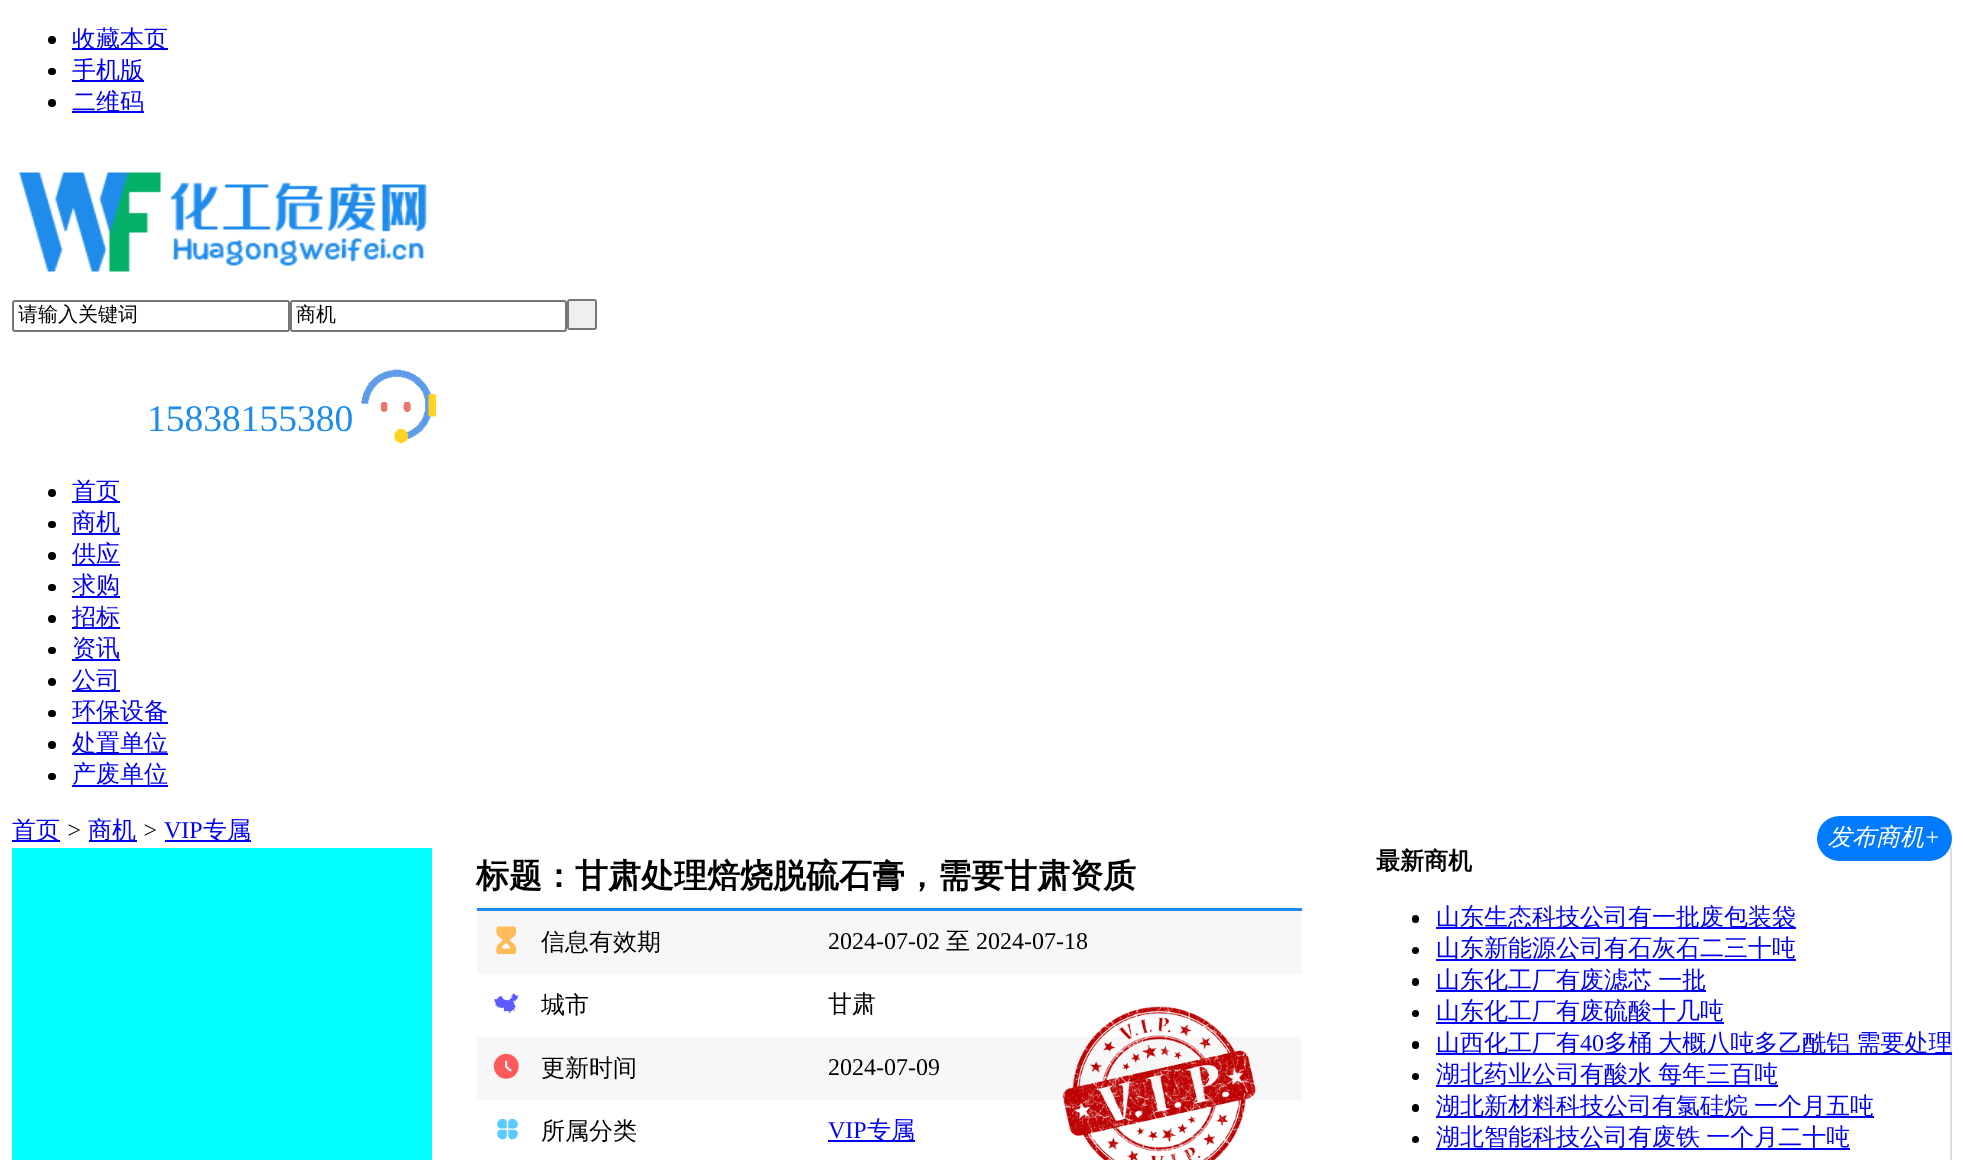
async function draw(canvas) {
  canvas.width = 1963
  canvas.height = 1160
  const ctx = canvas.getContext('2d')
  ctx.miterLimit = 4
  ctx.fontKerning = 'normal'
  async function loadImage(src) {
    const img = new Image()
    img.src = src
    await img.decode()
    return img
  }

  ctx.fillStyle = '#fff'
  ctx.fillRect(0, 0, 1963, 1160)
  ctx.fillStyle = '#000'
  ctx.beginPath()
  ctx.arc(52, 40, 4, 0, 2 * Math.PI)
  ctx.fill()
  ctx.fillStyle = '#00e'
  ctx.fillRect(72, 48, 96, 2)
  ctx.font = '500 24px WenQuanYi Zen Hei'
  ctx.fillText('收藏本页', 72, 47)
  ctx.fillStyle = '#000'
  ctx.beginPath()
  ctx.roundRect(48, 68, 8, 7, 3.5)
  ctx.fill()
  ctx.fillStyle = '#00e'
  ctx.fillRect(72, 80, 72, 2)
  ctx.fillText('手机版', 72, 78)
  ctx.fillStyle = '#000'
  ctx.beginPath()
  ctx.arc(52, 103, 4, 0, 2 * Math.PI)
  ctx.fill()
  ctx.fillStyle = '#00e'
  ctx.fillRect(72, 111, 72, 2)
  ctx.fillText('二维码', 72, 110)
  ctx.drawImage(await loadImage('image0.png'), 19, 172, 408, 100)
  ctx.beginPath()
  ctx.roundRect(13, 301, 276, 30, 2)
  ctx.strokeStyle = '#767676'
  ctx.lineWidth = 2
  ctx.stroke()
  ctx.font = '500 20px WenQuanYi Zen Hei'
  ctx.fillStyle = '#000'
  ctx.fillText('请输入关键词', 18, 321)
  ctx.beginPath()
  ctx.roundRect(291, 301, 275, 30, 2)
  ctx.stroke()
  ctx.fillText('商机', 296, 321)
  ctx.fillStyle = '#efefef'
  ctx.beginPath()
  ctx.roundRect(568, 300, 28, 29, 2)
  ctx.fill()
  ctx.stroke()
  ctx.font = '37.5px Liberation Serif'
  ctx.fillStyle = '#1f8ceb'
  ctx.fillText('15838155380', 147, 431)
  ctx.drawImage(await loadImage('image1.png'), 361, 369, 75, 75)
  ctx.fillStyle = '#000'
  ctx.beginPath()
  ctx.arc(52, 493, 4, 0, 2 * Math.PI)
  ctx.fill()
  ctx.fillStyle = '#00e'
  ctx.fillRect(72, 501, 48, 2)
  ctx.font = '500 24px WenQuanYi Zen Hei'
  ctx.fillText('首页', 72, 499)
  ctx.fillStyle = '#000'
  ctx.beginPath()
  ctx.roundRect(48, 521, 8, 7, 3.5)
  ctx.fill()
  ctx.fillStyle = '#00e'
  ctx.fillText('商机', 72, 530)
  ctx.fillRect(72, 533, 48, 2)
  ctx.fillStyle = '#000'
  ctx.beginPath()
  ctx.arc(52, 556, 4, 0, 2 * Math.PI)
  ctx.fill()
  ctx.fillStyle = '#00e'
  ctx.fillRect(72, 564, 48, 2)
  ctx.fillText('供应', 72, 562)
  ctx.fillStyle = '#000'
  ctx.beginPath()
  ctx.roundRect(48, 584, 8, 7, 3.5)
  ctx.fill()
  ctx.fillStyle = '#00e'
  ctx.fillRect(72, 596, 48, 2)
  ctx.fillText('求购', 72, 593)
  ctx.fillStyle = '#000'
  ctx.beginPath()
  ctx.arc(52, 619, 4, 0, 2 * Math.PI)
  ctx.fill()
  ctx.fillStyle = '#00e'
  ctx.fillRect(72, 627, 48, 2)
  ctx.fillText('招标', 72, 625)
  ctx.fillStyle = '#000'
  ctx.beginPath()
  ctx.roundRect(48, 647, 8, 7, 3.5)
  ctx.fill()
  ctx.fillStyle = '#00e'
  ctx.fillRect(72, 659, 48, 2)
  ctx.fillText('资讯', 72, 656)
  ctx.fillStyle = '#000'
  ctx.beginPath()
  ctx.arc(52, 682, 4, 0, 2 * Math.PI)
  ctx.fill()
  ctx.fillStyle = '#00e'
  ctx.fillRect(72, 690, 48, 2)
  ctx.fillText('公司', 72, 688)
  ctx.fillStyle = '#000'
  ctx.beginPath()
  ctx.roundRect(48, 710, 8, 7, 3.5)
  ctx.fill()
  ctx.fillStyle = '#00e'
  ctx.fillRect(72, 722, 96, 2)
  ctx.fillText('环保设备', 72, 719)
  ctx.fillStyle = '#000'
  ctx.beginPath()
  ctx.arc(52, 745, 4, 0, 2 * Math.PI)
  ctx.fill()
  ctx.fillStyle = '#00e'
  ctx.fillRect(72, 753, 96, 2)
  ctx.fillText('处置单位', 72, 751)
  ctx.fillStyle = '#000'
  ctx.beginPath()
  ctx.roundRect(48, 773, 8, 7, 3.5)
  ctx.fill()
  ctx.fillStyle = '#00e'
  ctx.fillRect(72, 785, 96, 2)
  ctx.fillText('产废单位', 72, 782)
  ctx.fillRect(12, 840, 48, 2)
  ctx.fillText('首页', 12, 838)
  ctx.font = 'italic 24px Liberation Serif'
  ctx.fillStyle = '#000'
  ctx.fillText('>', 66, 838)
  ctx.fillStyle = '#00e'
  ctx.fillRect(89, 840, 48, 2)
  ctx.font = '500 24px WenQuanYi Zen Hei'
  ctx.fillText('商机', 88, 838)
  ctx.font = 'italic 24px Liberation Serif'
  ctx.fillStyle = '#000'
  ctx.fillText('>', 142, 838)
  ctx.font = '24px Liberation Serif'
  ctx.fillStyle = '#00e'
  ctx.fillText('VIP', 164, 838)
  ctx.fillRect(165, 840, 86, 2)
  ctx.font = '500 24px WenQuanYi Zen Hei'
  ctx.fillText('专属', 203, 838)
  ctx.fillStyle = '#007aff'
  ctx.beginPath()
  ctx.roundRect(1817, 816, 135, 45, 22.5)
  ctx.fill()
  ctx.font = 'italic 500 24px WenQuanYi Zen Hei'
  ctx.fillStyle = '#fff'
  ctx.fillText('发布商机', 1828, 845)
  ctx.font = 'italic 24px Liberation Serif'
  ctx.fillText('+', 1924, 845)
  ctx.fillStyle = '#ddd'
  ctx.fillRect(1950, 848, 2, 312)
  ctx.fillStyle = '#0ff'
  ctx.fillRect(12, 848, 420, 312)
  ctx.font = 'bold 33px WenQuanYi Zen Hei'
  ctx.fillStyle = '#000'
  ctx.fillText('标题：甘肃处理焙烧脱硫石膏，需要甘肃资质', 476, 887)
  ctx.fillStyle = '#1f8ceb'
  ctx.fillRect(477, 908, 825, 3)
  ctx.fillStyle = '#f7f7f7'
  ctx.fillRect(477, 911, 825, 63)
  ctx.drawImage(await loadImage('image2.png'), 496, 926, 21, 29)
  ctx.font = '500 24px WenQuanYi Zen Hei'
  ctx.fillStyle = '#000'
  ctx.fillText('信息有效期', 541, 950)
  ctx.font = '24px Liberation Serif'
  ctx.fillText('2024-07-02', 828, 949)
  ctx.font = '500 24px WenQuanYi Zen Hei'
  ctx.fillText('至', 946, 949)
  ctx.font = '24px Liberation Serif'
  ctx.fillText('2024-07-18', 976, 949)
  ctx.drawImage(await loadImage('image3.png'), 494, 993, 25, 21)
  ctx.font = '500 24px WenQuanYi Zen Hei'
  ctx.fillText('城市', 541, 1013)
  ctx.fillText('甘肃', 828, 1012)
  ctx.fillStyle = '#f7f7f7'
  ctx.fillRect(477, 1037, 825, 63)
  ctx.drawImage(await loadImage('image4.png'), 493, 1053, 26, 26)
  ctx.fillStyle = '#000'
  ctx.fillText('更新时间', 541, 1076)
  ctx.font = '24px Liberation Serif'
  ctx.fillText('2024-07-09', 828, 1075)
  ctx.drawImage(await loadImage('image5.png'), 497, 1118, 21, 22)
  ctx.font = '500 24px WenQuanYi Zen Hei'
  ctx.fillText('所属分类', 541, 1139)
  ctx.font = '24px Liberation Serif'
  ctx.fillStyle = '#00e'
  ctx.fillText('VIP', 828, 1138)
  ctx.fillRect(828, 1140, 87, 2)
  ctx.font = '500 24px WenQuanYi Zen Hei'
  ctx.fillText('专属', 867, 1138)
  ctx.drawImage(await loadImage('image6.png'), 1062, 1006, 194, 154)
  ctx.font = 'bold 24px WenQuanYi Zen Hei'
  ctx.fillStyle = '#000'
  ctx.fillText('最新商机', 1376, 869)
  ctx.beginPath()
  ctx.roundRect(1412, 915, 7, 8, 3.5)
  ctx.fill()
  ctx.fillStyle = '#00e'
  ctx.fillRect(1436, 927, 360, 2)
  ctx.font = '500 24px WenQuanYi Zen Hei'
  ctx.fillText('山东生态科技公司有一批废包装袋', 1436, 925)
  ctx.fillStyle = '#000'
  ctx.beginPath()
  ctx.arc(1415.5, 950.5, 3.5, 0, 2 * Math.PI)
  ctx.fill()
  ctx.fillStyle = '#00e'
  ctx.fillRect(1436, 959, 360, 2)
  ctx.fillText('山东新能源公司有石灰石二三十吨', 1436, 956)
  ctx.fillStyle = '#000'
  ctx.beginPath()
  ctx.roundRect(1412, 978, 7, 8, 3.5)
  ctx.fill()
  ctx.fillStyle = '#00e'
  ctx.fillRect(1436, 990, 270, 2)
  ctx.wordSpacing = '-1px'
  ctx.fillText('山东化工厂有废滤芯 一批', 1436, 988)
  ctx.fillStyle = '#000'
  ctx.beginPath()
  ctx.arc(1415.5, 1013.5, 3.5, 0, 2 * Math.PI)
  ctx.fill()
  ctx.fillStyle = '#00e'
  ctx.fillRect(1436, 1022, 288, 2)
  ctx.wordSpacing = '0px'
  ctx.fillText('山东化工厂有废硫酸十几吨', 1436, 1019)
  ctx.fillStyle = '#000'
  ctx.beginPath()
  ctx.roundRect(1412, 1041, 7, 8, 3.5)
  ctx.fill()
  ctx.fillStyle = '#00e'
  ctx.fillRect(1436, 1053, 516, 2)
  ctx.fillText('山西化工厂有', 1436, 1051)
  ctx.font = '24px Liberation Serif'
  ctx.fillText('40', 1580, 1051)
  ctx.wordSpacing = '-1px'
  ctx.font = '500 24px WenQuanYi Zen Hei'
  ctx.fillText('多桶 大概八吨多乙酰铝 需要处理', 1604, 1051)
  ctx.fillStyle = '#000'
  ctx.beginPath()
  ctx.arc(1415.5, 1076.5, 3.5, 0, 2 * Math.PI)
  ctx.fill()
  ctx.fillStyle = '#00e'
  ctx.fillRect(1436, 1085, 342, 2)
  ctx.fillText('湖北药业公司有酸水 每年三百吨', 1436, 1082)
  ctx.fillStyle = '#000'
  ctx.beginPath()
  ctx.roundRect(1412, 1104, 7, 8, 3.5)
  ctx.fill()
  ctx.fillStyle = '#00e'
  ctx.fillRect(1436, 1116, 438, 2)
  ctx.wordSpacing = '0px'
  ctx.fillText('湖北新材料科技公司有氯硅烷', 1436, 1114)
  ctx.fillText('一个月五吨', 1754, 1114)
  ctx.fillStyle = '#000'
  ctx.beginPath()
  ctx.arc(1415.5, 1139.5, 3.5, 0, 2 * Math.PI)
  ctx.fill()
  ctx.fillStyle = '#00e'
  ctx.fillRect(1436, 1148, 414, 2)
  ctx.wordSpacing = '-1px'
  ctx.fillText('湖北智能科技公司有废铁 一个月二十吨', 1436, 1145)
}

draw(document.querySelector('canvas'))
